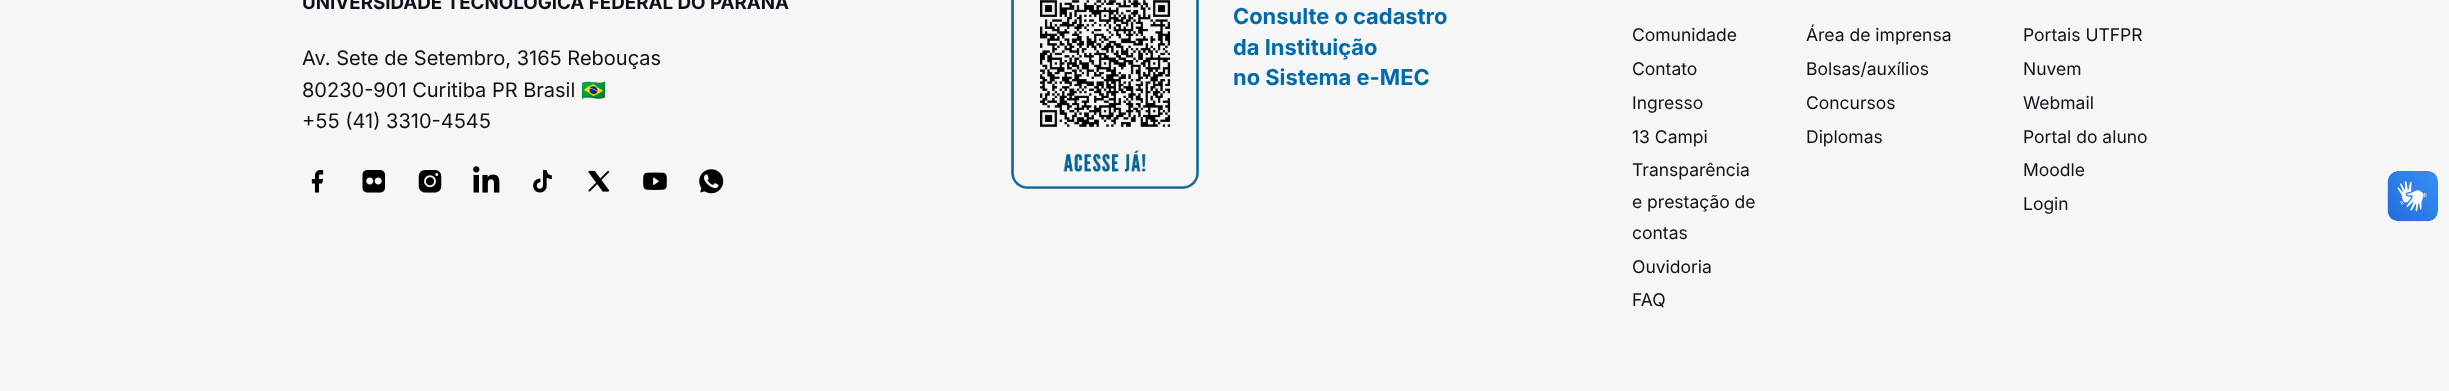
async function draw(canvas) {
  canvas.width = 2449
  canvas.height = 391
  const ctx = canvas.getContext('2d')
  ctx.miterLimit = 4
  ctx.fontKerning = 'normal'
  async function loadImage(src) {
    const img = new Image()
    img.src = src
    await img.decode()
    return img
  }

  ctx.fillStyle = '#f6f6f6'
  ctx.fillRect(0, 0, 2449, 391)
  ctx.font = 'bold 18.75px Inter'
  ctx.fillStyle = '#0d1117'
  ctx.fillText('UNIVERSIDADE TECNOLÓGICA FEDERAL DO PARANÁ', 302, 9)
  ctx.font = '20px Inter'
  ctx.fillText('Av. Sete de Setembro, 3165 Rebouças', 302, 65)
  ctx.fillText('80230-901 Curitiba PR Brasil', 302, 97)
  ctx.font = '20px Noto Color Emoji'
  ctx.fillText('🇧🇷', 581, 97)
  ctx.font = '20px Inter'
  ctx.fillText('+55 (41) 3310-4545', 302, 128)
  ctx.drawImage(await loadImage('image0.png'), 311, 170, 13, 23)
  ctx.drawImage(await loadImage('image1.png'), 362, 170, 23, 23)
  ctx.drawImage(await loadImage('image2.png'), 418, 170, 24, 23)
  ctx.drawImage(await loadImage('image3.png'), 473, 166, 27, 27)
  ctx.drawImage(await loadImage('image4.png'), 533, 170, 19, 23)
  ctx.drawImage(await loadImage('image5.png'), 588, 170, 22, 22)
  ctx.drawImage(await loadImage('image6.png'), 643, 172, 24, 18)
  ctx.drawImage(await loadImage('image7.png'), 699, 169, 25, 25)
  ctx.drawImage(await loadImage('image8.png'), 1011, 0, 188, 189)
  ctx.font = 'bold 21.9px Inter'
  ctx.fillStyle = '#016aab'
  ctx.fillText('Consulte o cadastro', 1233, 24)
  ctx.fillText('da Instituição', 1233, 55)
  ctx.fillText('no Sistema e-MEC', 1233, 85)
  ctx.font = '17.5px Inter'
  ctx.fillStyle = '#0d1117'
  ctx.fillText('Comunidade', 1632, 41)
  ctx.fillText('Contato', 1632, 75)
  ctx.fillText('Ingresso', 1632, 109)
  ctx.fillText('13 Campi', 1632, 143)
  ctx.fillText('Transparência', 1632, 176)
  ctx.fillText('e prestação de', 1632, 208)
  ctx.fillText('contas', 1632, 239)
  ctx.fillText('Ouvidoria', 1632, 273)
  ctx.fillText('FAQ', 1632, 306)
  ctx.fillText('Área de imprensa', 1806, 41)
  ctx.fillText('Bolsas/auxílios', 1806, 75)
  ctx.fillText('Concursos', 1806, 109)
  ctx.fillText('Diplomas', 1806, 143)
  ctx.fillText('Portais UTFPR', 2023, 41)
  ctx.fillText('Nuvem', 2023, 75)
  ctx.fillText('Webmail', 2023, 109)
  ctx.fillText('Portal do aluno', 2023, 143)
  ctx.fillText('Moodle', 2023, 176)
  ctx.fillText('Login', 2023, 210)
  ctx.drawImage(await loadImage('image9.png'), 2387, 171, 51, 51)
  ctx.drawImage(await loadImage('image10.png'), 2388, 171, 50, 50)
}

draw(document.querySelector('canvas'))
